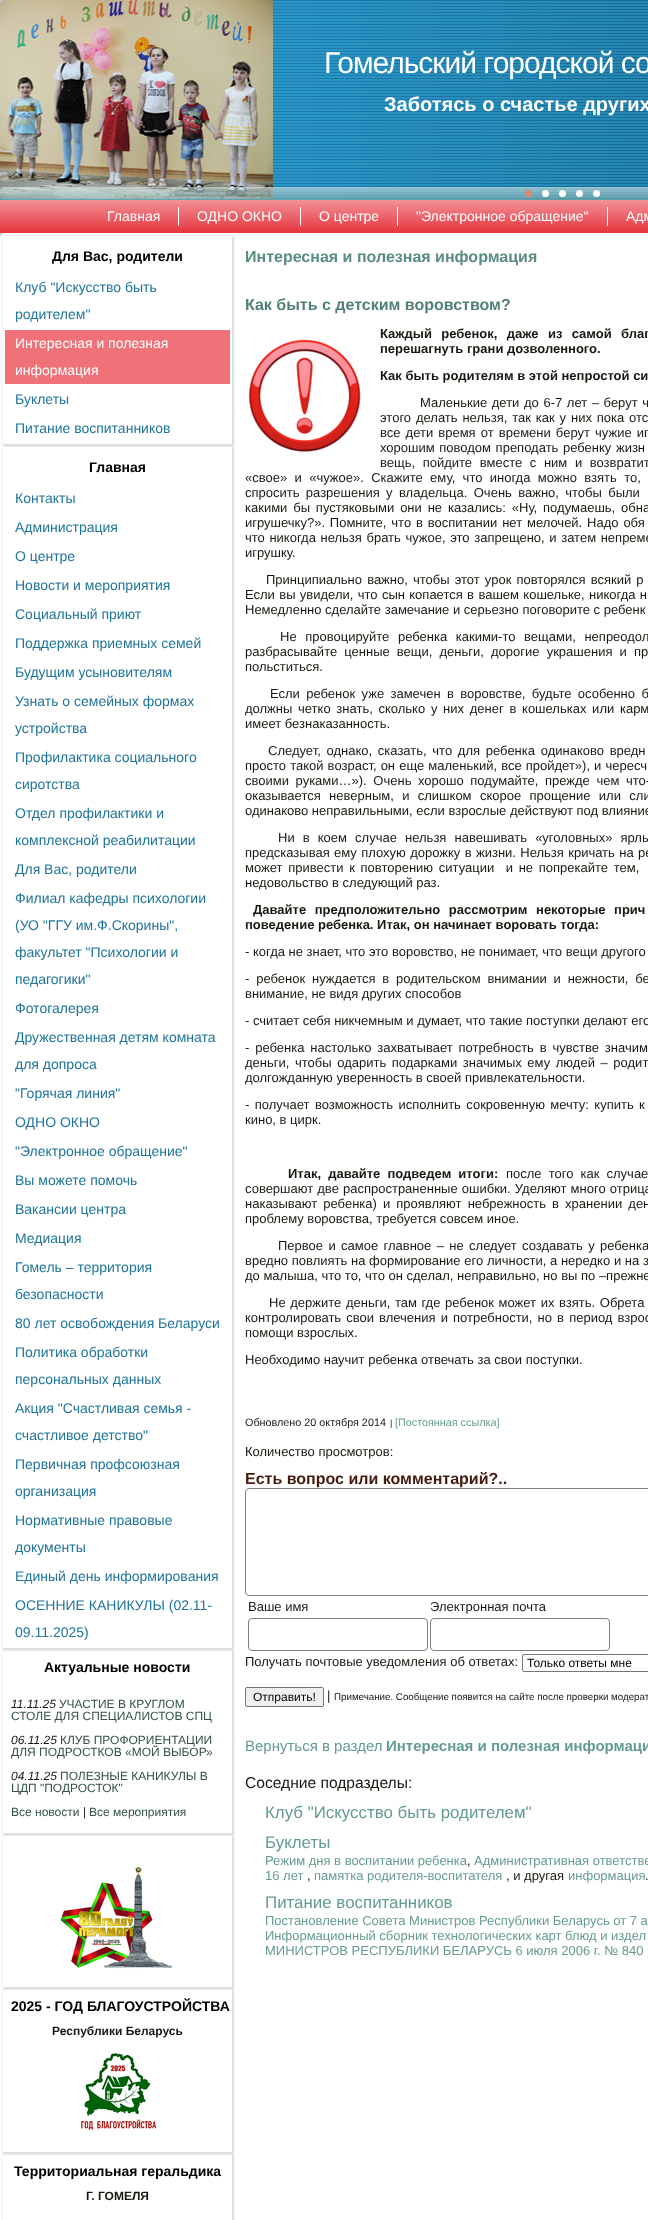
async function draw(canvas) {
  canvas.width = 648
  canvas.height = 2220
  const ctx = canvas.getContext('2d')
  ctx.miterLimit = 4
  ctx.fontKerning = 'normal'
  async function loadImage(src) {
    const img = new Image()
    img.src = src
    await img.decode()
    return img
  }
  let gradient

  ctx.fillStyle = '#fff'
  ctx.fillRect(0, 0, 648, 2220)
  ctx.drawImage(await loadImage('image0.png'), 0, 0, 5, 238)
  ctx.fillStyle = '#00000026'
  ctx.filter = 'blur(1.5px)'
  ctx.beginPath()
  ctx.roundRect(-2, -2, 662, 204, 7)
  ctx.fill()
  ctx.filter = 'none'
  ctx.drawImage(await loadImage('image1.png'), 0, 0, 648, 200)
  ctx.letterSpacing = '-1px'
  ctx.font = '30px Liberation Sans'
  ctx.fillStyle = '#fff'
  ctx.fillText('Гомельский городской со', 324, 73)
  ctx.letterSpacing = '0px'
  ctx.font = 'bold 20px Liberation Sans'
  ctx.fillText('Заботясь о счастье других', 384, 111)
  ctx.fillStyle = '#e2886a'
  ctx.beginPath()
  ctx.arc(528.5, 193.5, 3.5, 0, 2 * Math.PI)
  ctx.fill()
  ctx.fillStyle = '#fff'
  ctx.beginPath()
  ctx.arc(545.5, 193.5, 3.5, 0, 2 * Math.PI)
  ctx.fill()
  ctx.beginPath()
  ctx.arc(562.5, 193.5, 3.5, 0, 2 * Math.PI)
  ctx.fill()
  ctx.beginPath()
  ctx.arc(579.5, 193.5, 3.5, 0, 2 * Math.PI)
  ctx.fill()
  ctx.beginPath()
  ctx.arc(596.5, 193.5, 3.5, 0, 2 * Math.PI)
  ctx.fill()
  ctx.fillStyle = '#00000026'
  ctx.filter = 'blur(1.5px)'
  ctx.beginPath()
  ctx.roundRect(-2, 231, 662, 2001, 7)
  ctx.fill()
  ctx.filter = 'none'
  ctx.fillStyle = '#fff'
  ctx.beginPath()
  ctx.roundRect(0, 233, 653, 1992, 5)
  ctx.fill()
  ctx.save()
  ctx.beginPath()
  ctx.moveTo(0, 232)
  ctx.lineTo(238, 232)
  ctx.lineTo(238, 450)
  ctx.lineTo(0, 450)
  ctx.closePath()
  ctx.moveTo(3, 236)
  ctx.lineTo(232, 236)
  ctx.lineTo(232, 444)
  ctx.lineTo(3, 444)
  ctx.closePath()
  ctx.clip('evenodd')
  ctx.fillStyle = '#00000026'
  ctx.filter = 'blur(1px)'
  ctx.beginPath()
  ctx.rect(3, 236, 231, 210)
  ctx.fill()
  ctx.filter = 'none'
  ctx.restore()
  gradient = ctx.createLinearGradient(563, 200, 563, 233)
  gradient.addColorStop(0, '#f29297')
  gradient.addColorStop(1, '#e6333c')
  ctx.fillStyle = gradient
  ctx.fillRect(0, 200, 648, 33)
  ctx.font = '14px Liberation Sans'
  ctx.fillStyle = '#fff'
  ctx.fillText('Главная', 107, 221)
  ctx.fillRect(178, 207, 1, 19)
  ctx.fillText('ОДНО ОКНО', 197, 221)
  ctx.fillRect(300, 207, 1, 19)
  ctx.fillText('О центре', 319, 221)
  ctx.fillRect(397, 207, 1, 19)
  ctx.fillText('"Электронное обращение"', 416, 221)
  ctx.fillRect(607, 207, 1, 19)
  ctx.fillText('Адм', 626, 221)
  ctx.font = 'bold 14px Liberation Sans'
  ctx.fillStyle = '#000'
  ctx.fillText('Для Вас, родители', 52, 261)
  ctx.font = '14px Liberation Sans'
  ctx.fillStyle = '#1f7498'
  ctx.fillText('Клуб "Искусство быть', 15, 292)
  ctx.fillText('родителем"', 15, 319)
  ctx.fillStyle = '#ee7278'
  ctx.fillRect(5, 330, 225, 54)
  ctx.fillStyle = '#fff'
  ctx.fillText('Интересная и полезная', 15, 348)
  ctx.fillText('информация', 15, 375)
  ctx.fillStyle = '#1f7498'
  ctx.fillText('Буклеты', 15, 404)
  ctx.fillText('Питание воспитанников', 15, 433)
  ctx.fillStyle = '#00000026'
  ctx.filter = 'blur(1px)'
  ctx.beginPath()
  ctx.rect(3, 447, 231, 1203)
  ctx.fill()
  ctx.filter = 'none'
  ctx.fillStyle = '#fff'
  ctx.fillRect(3, 447, 229, 1201)
  ctx.font = 'bold 14px Liberation Sans'
  ctx.fillStyle = '#000'
  ctx.fillText('Главная', 89, 472)
  ctx.font = '14px Liberation Sans'
  ctx.fillStyle = '#1f7498'
  ctx.fillText('Контакты', 15, 503)
  ctx.fillText('Администрация', 15, 532)
  ctx.fillText('О центре', 15, 561)
  ctx.fillText('Новости и мероприятия', 15, 590)
  ctx.fillText('Социальный приют', 15, 619)
  ctx.fillText('Поддержка приемных семей', 15, 648)
  ctx.fillText('Будущим усыновителям', 15, 677)
  ctx.fillText('Узнать о семейных формах', 15, 706)
  ctx.fillText('устройства', 15, 733)
  ctx.fillText('Профилактика социального', 15, 762)
  ctx.fillText('сиротства', 15, 789)
  ctx.fillText('Отдел профилактики и', 15, 818)
  ctx.fillText('комплексной реабилитации', 15, 845)
  ctx.fillText('Для Вас, родители', 15, 874)
  ctx.fillText('Филиал кафедры психологии', 15, 903)
  ctx.fillText('(УО "ГГУ им.Ф.Скорины",', 15, 930)
  ctx.fillText('факультет "Психологии и', 15, 957)
  ctx.fillText('педагогики"', 15, 984)
  ctx.fillText('Фотогалерея', 15, 1013)
  ctx.fillText('Дружественная детям комната', 15, 1042)
  ctx.fillText('для допроса', 15, 1069)
  ctx.fillText('"Горячая линия"', 15, 1098)
  ctx.fillText('ОДНО ОКНО', 15, 1127)
  ctx.fillText('"Электронное обращение"', 15, 1156)
  ctx.fillText('Вы можете помочь', 15, 1185)
  ctx.fillText('Вакансии центра', 15, 1214)
  ctx.fillText('Медиация', 15, 1243)
  ctx.fillText('Гомель – территория', 15, 1272)
  ctx.fillText('безопасности', 15, 1299)
  ctx.fillText('80 лет освобождения Беларуси', 15, 1328)
  ctx.fillText('Политика обработки', 15, 1357)
  ctx.fillText('персональных данных', 15, 1384)
  ctx.fillText('Акция "Счастливая семья -', 15, 1413)
  ctx.fillText('счастливое детство"', 15, 1440)
  ctx.fillText('Первичная профсоюзная', 15, 1469)
  ctx.fillText('организация', 15, 1496)
  ctx.fillText('Нормативные правовые', 15, 1525)
  ctx.fillText('документы', 15, 1552)
  ctx.fillText('Единый день информирования', 15, 1581)
  ctx.fillText('ОСЕННИЕ КАНИКУЛЫ (02.11-', 15, 1610)
  ctx.fillText('09.11.2025)', 15, 1637)
  ctx.fillStyle = '#00000026'
  ctx.filter = 'blur(1px)'
  ctx.beginPath()
  ctx.rect(3, 1651, 231, 184)
  ctx.fill()
  ctx.filter = 'none'
  ctx.fillStyle = '#fff'
  ctx.fillRect(3, 1651, 229, 182)
  ctx.font = 'bold 14px Liberation Sans'
  ctx.fillStyle = '#000'
  ctx.fillText('Актуальные новости', 44, 1672)
  ctx.font = 'italic 12px Liberation Sans'
  ctx.fillStyle = '#191810'
  ctx.fillText('11.11.25', 11, 1708)
  ctx.font = '12px Liberation Sans'
  ctx.fillStyle = '#34514c'
  ctx.fillText('УЧАСТИЕ В КРУГЛОМ', 59, 1708)
  ctx.fillText('СТОЛЕ ДЛЯ СПЕЦИАЛИСТОВ СПЦ', 11, 1720)
  ctx.font = 'italic 12px Liberation Sans'
  ctx.fillStyle = '#191810'
  ctx.fillText('06.11.25', 11, 1744)
  ctx.font = '12px Liberation Sans'
  ctx.fillStyle = '#34514c'
  ctx.fillText('КЛУБ ПРОФОРИЕНТАЦИИ', 60, 1744)
  ctx.fillText('ДЛЯ ПОДРОСТКОВ «МОЙ ВЫБОР»', 11, 1756)
  ctx.font = 'italic 12px Liberation Sans'
  ctx.fillStyle = '#191810'
  ctx.fillText('04.11.25', 11, 1780)
  ctx.font = '12px Liberation Sans'
  ctx.fillStyle = '#34514c'
  ctx.fillText('ПОЛЕЗНЫЕ КАНИКУЛЫ В', 60, 1780)
  ctx.fillText('ЦДП "ПОДРОСТОК"', 11, 1792)
  ctx.fillText('Все новости', 11, 1816)
  ctx.fillStyle = '#191810'
  ctx.fillText('|', 83, 1816)
  ctx.fillStyle = '#34514c'
  ctx.fillText('Все мероприятия', 89, 1816)
  ctx.fillStyle = '#00000026'
  ctx.filter = 'blur(1px)'
  ctx.beginPath()
  ctx.rect(3, 1836, 231, 153)
  ctx.fill()
  ctx.filter = 'none'
  ctx.fillStyle = '#fff'
  ctx.fillRect(3, 1836, 229, 151)
  ctx.drawImage(await loadImage('image2.png'), 59, 1866, 114, 103)
  ctx.fillStyle = '#00000026'
  ctx.filter = 'blur(1px)'
  ctx.beginPath()
  ctx.rect(3, 1990, 231, 164)
  ctx.fill()
  ctx.filter = 'none'
  ctx.fillStyle = '#fff'
  ctx.fillRect(3, 1990, 229, 162)
  ctx.font = 'bold 14px Liberation Sans'
  ctx.fillStyle = '#000'
  ctx.fillText('2025 - ГОД БЛАГОУСТРОЙСТВА', 11, 2011)
  ctx.font = 'bold 12px Liberation Sans'
  ctx.fillStyle = '#191810'
  ctx.fillText('Республики Беларусь', 52, 2035)
  ctx.drawImage(await loadImage('image3.png'), 81, 2053, 76, 77)
  ctx.fillStyle = '#00000026'
  ctx.filter = 'blur(1px)'
  ctx.beginPath()
  ctx.rect(3, 2155, 231, 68)
  ctx.fill()
  ctx.filter = 'none'
  ctx.fillStyle = '#fff'
  ctx.fillRect(3, 2155, 229, 65)
  ctx.font = 'bold 14px Liberation Sans'
  ctx.fillStyle = '#000'
  ctx.fillText('Территориальная геральдика', 14, 2176)
  ctx.font = 'bold 12px Liberation Sans'
  ctx.fillStyle = '#191810'
  ctx.fillText('Г. ГОМЕЛЯ', 86, 2200)
  ctx.font = 'bold 16px Liberation Sans'
  ctx.fillStyle = '#5a8c83'
  ctx.fillText('Интересная и полезная информация', 245, 262)
  ctx.fillStyle = '#527f78'
  ctx.fillText('Как быть с детским воровством?', 245, 310)
  ctx.drawImage(await loadImage('image4.png'), 248, 339, 113, 113)
  ctx.wordSpacing = '5.75px'
  ctx.font = 'bold 13px Liberation Sans'
  ctx.fillStyle = '#191810'
  ctx.fillText('Каждый ребенок, даже из самой благ', 380, 338)
  ctx.wordSpacing = '0px'
  ctx.fillText('перешагнуть грани дозволенного.', 380, 353)
  ctx.fillText('Как быть родителям в этой непростой си', 380, 380)
  ctx.wordSpacing = '1px'
  ctx.font = '13px Liberation Sans'
  ctx.fillText('Маленькие дети до 6-7 лет – берут ч', 420, 407)
  ctx.wordSpacing = '1.25px'
  ctx.fillText('этого делать нельзя, так как у них пока отс', 380, 422)
  ctx.wordSpacing = '1.5px'
  ctx.fillText('все дети время от времени берут чужие иг', 380, 437)
  ctx.wordSpacing = '1px'
  ctx.fillText('хорошим поводом преподать ребенку жизн', 380, 452)
  ctx.wordSpacing = '4px'
  ctx.fillText('вещь, пойдите вместе с ним и возвратит', 380, 467)
  ctx.wordSpacing = '3.75px'
  ctx.fillText('«свое» и «чужое». Скажите ему, что иногда можно взять то,', 245, 482)
  ctx.wordSpacing = '2.75px'
  ctx.fillText('спросить разрешения у владельца. Очень важно, чтобы были', 245, 497)
  ctx.wordSpacing = '2.25px'
  ctx.fillText('какими бы пустяковыми они не казались: «Ну, подумаешь, обна', 245, 512)
  ctx.wordSpacing = '1.25px'
  ctx.fillText('игрушечку?». Помните, что в воспитании нет мелочей. Надо обя', 245, 527)
  ctx.wordSpacing = '1px'
  ctx.fillText('что никогда нельзя брать чужое, это запрещено, и затем непреме', 245, 542)
  ctx.wordSpacing = '0px'
  ctx.fillText('игрушку.', 245, 557)
  ctx.wordSpacing = '1.5px'
  ctx.fillText('Принципиально важно, чтобы этот урок повторялся всякий р', 266, 584)
  ctx.wordSpacing = '0.75px'
  ctx.fillText('Если вы увидели, что сын копается в вашем кошельке, никогда н', 245, 599)
  ctx.wordSpacing = '0px'
  ctx.fillText('Немедленно сделайте замечание и серьезно поговорите с ребенк', 245, 614)
  ctx.wordSpacing = '5px'
  ctx.fillText('Не провоцируйте ребенка какими-то вещами, непреодол', 280, 641)
  ctx.wordSpacing = '3.5px'
  ctx.fillText('разбрасывайте ценные вещи, деньги, дорогие украшения и пр', 245, 656)
  ctx.wordSpacing = '0px'
  ctx.fillText('польститься.', 245, 671)
  ctx.wordSpacing = '2.75px'
  ctx.fillText('Если ребенок уже замечен в воровстве, будьте особенно б', 270, 698)
  ctx.wordSpacing = '2.1px'
  ctx.fillText('должны четко знать, сколько у них денег в кошельках или карм', 245, 713)
  ctx.wordSpacing = '0px'
  ctx.fillText('имеет безнаказанность.', 245, 728)
  ctx.wordSpacing = '2.1px'
  ctx.fillText('Следует, однако, сказать, что для ребенка одинаково вредн', 268, 755)
  ctx.wordSpacing = '0.5px'
  ctx.fillText('просто такой возраст, он еще маленький, все пройдет»), и чересч', 245, 770)
  ctx.wordSpacing = '3px'
  ctx.fillText('своими руками…»). Очень хорошо подумайте, прежде чем что-', 245, 785)
  ctx.wordSpacing = '4.75px'
  ctx.fillText('оказывается неверным, и слишком скорое прощение или сли', 245, 800)
  ctx.wordSpacing = '0px'
  ctx.fillText('одинаково неправильными, если взрослые действуют под влияние', 245, 815)
  ctx.wordSpacing = '4.5px'
  ctx.fillText('Ни в коем случае нельзя навешивать «уголовных» ярлы', 278, 842)
  ctx.wordSpacing = '0.75px'
  ctx.fillText('предсказывая ему плохую дорожку в жизни. Нельзя кричать на ре', 245, 857)
  ctx.wordSpacing = '2.1px'
  ctx.fillText('может привести к повторению ситуации  и не попрекайте тем,', 245, 872)
  ctx.wordSpacing = '0px'
  ctx.fillText('недовольство в следующий раз.', 245, 887)
  ctx.wordSpacing = '5px'
  ctx.font = 'bold 13px Liberation Sans'
  ctx.fillText('Давайте предположительно рассмотрим некоторые прич', 253, 914)
  ctx.wordSpacing = '0px'
  ctx.fillText('поведение ребенка. Итак, он начинает воровать тогда:', 245, 929)
  ctx.font = '13px Liberation Sans'
  ctx.fillText('- когда не знает, что это воровство, не понимает, что вещи другого', 245, 956)
  ctx.wordSpacing = '3.25px'
  ctx.fillText('- ребенок нуждается в родительском внимании и нежности, бе', 245, 983)
  ctx.wordSpacing = '0px'
  ctx.fillText('внимание, не видя других способов', 245, 998)
  ctx.fillText('- считает себя никчемным и думает, что такие поступки делают его', 245, 1025)
  ctx.wordSpacing = '2.25px'
  ctx.fillText('- ребенка настолько захватывает потребность в чувстве значим', 245, 1052)
  ctx.wordSpacing = '2px'
  ctx.fillText('деньги, чтобы одарить подарками значимых ему людей – родит', 245, 1067)
  ctx.wordSpacing = '0px'
  ctx.fillText('долгожданную уверенность в своей привлекательности.', 245, 1082)
  ctx.wordSpacing = '1.75px'
  ctx.fillText('- получает возможность исполнить сокровенную мечту: купить к', 245, 1109)
  ctx.wordSpacing = '0px'
  ctx.fillText('кино, в цирк.', 245, 1124)
  ctx.wordSpacing = '3.5px'
  ctx.font = 'bold 13px Liberation Sans'
  ctx.fillText('Итак, давайте подведем итоги:', 288, 1178)
  ctx.font = '13px Liberation Sans'
  ctx.fillText('после того как случае', 506, 1178)
  ctx.wordSpacing = '0.5px'
  ctx.fillText('совершают две распространенные ошибки. Уделяют много отрица', 245, 1193)
  ctx.wordSpacing = '2.5px'
  ctx.fillText('наказывают ребенка) и проявляют небрежность в хранении ден', 245, 1208)
  ctx.wordSpacing = '0px'
  ctx.fillText('проблему воровства, требуется совсем иное.', 245, 1223)
  ctx.wordSpacing = '1.75px'
  ctx.fillText('Первое и самое главное – не следует создавать у ребенка', 278, 1250)
  ctx.wordSpacing = '0.1px'
  ctx.fillText('вредно повлиять на формирование его личности, а нередко и на з', 245, 1265)
  ctx.wordSpacing = '0px'
  ctx.fillText('до малыша, что то, что он сделал, неправильно, но вы по –прежне', 245, 1280)
  ctx.wordSpacing = '1px'
  ctx.fillText('Не держите деньги, там где ребенок может их взять. Обрета', 269, 1307)
  ctx.wordSpacing = '1.5px'
  ctx.fillText('контролировать свои влечения и потребности, но в период взрос', 245, 1322)
  ctx.wordSpacing = '0px'
  ctx.fillText('помощи взрослых.', 245, 1337)
  ctx.fillText('Необходимо научит ребенка отвечать за свои поступки.', 245, 1364)
  ctx.font = '10.8px Liberation Sans'
  ctx.fillText('Обновлено 20 октября 2014', 245, 1426)
  ctx.font = '9px Liberation Sans'
  ctx.fillText('|', 390, 1426)
  ctx.font = '10.8px Liberation Sans'
  ctx.fillStyle = '#649b92'
  ctx.fillText('[Постоянная ссылка]', 395, 1426)
  ctx.font = '13px Liberation Sans'
  ctx.fillStyle = '#191810'
  ctx.fillText('Количество просмотров:', 245, 1456)
  ctx.font = 'bold 16px Liberation Sans'
  ctx.fillStyle = '#441b0d'
  ctx.fillText('Есть вопрос или комментарий?..', 245, 1484)
  ctx.beginPath()
  ctx.roundRect(245.5, 1488.5, 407, 107, 3.5)
  ctx.strokeStyle = '#808080'
  ctx.stroke()
  ctx.font = '13px Liberation Sans'
  ctx.fillStyle = '#191810'
  ctx.fillText('Ваше имя', 248, 1611)
  ctx.fillText('Электронная почта', 430, 1611)
  ctx.beginPath()
  ctx.roundRect(248.5, 1618.5, 179, 32, 3.5)
  ctx.stroke()
  ctx.beginPath()
  ctx.roundRect(430.5, 1618.5, 179, 32, 3.5)
  ctx.stroke()
  ctx.fillText('Получать почтовые уведомления об ответах:', 245, 1666)
  ctx.beginPath()
  ctx.roundRect(522.5, 1654.5, 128, 17, 1.5)
  ctx.strokeStyle = '#767676'
  ctx.stroke()
  ctx.font = '12px Liberation Sans'
  ctx.fillStyle = '#000'
  ctx.fillText('Только ответы мне', 527, 1667)
  ctx.fillStyle = '#efefef'
  ctx.beginPath()
  ctx.roundRect(245.5, 1687.5, 78, 19, 1.5)
  ctx.fill()
  ctx.stroke()
  ctx.fillStyle = '#000'
  ctx.fillText('Отправить!', 253, 1701)
  ctx.font = '13px Liberation Sans'
  ctx.fillStyle = '#191810'
  ctx.fillText('|', 327, 1700)
  ctx.font = '9.75px Liberation Sans'
  ctx.fillText('Примечание. Сообщение появится на сайте после проверки модерат', 334, 1700)
  ctx.font = '15px Liberation Sans'
  ctx.fillStyle = '#649b92'
  ctx.fillText('Вернуться в раздел', 245, 1751)
  ctx.font = 'bold 15px Liberation Sans'
  ctx.fillText('Интересная и полезная информаци', 386, 1751)
  ctx.font = '15.6px Liberation Sans'
  ctx.fillStyle = '#191810'
  ctx.fillText('Соседние подразделы:', 245, 1788)
  ctx.font = '16.9px Liberation Sans'
  ctx.fillStyle = '#649b92'
  ctx.fillText('Клуб "Искусство быть родителем"', 265, 1818)
  ctx.fillText('Буклеты', 265, 1848)
  ctx.font = '13px Liberation Sans'
  ctx.fillText('Режим дня в воспитании ребенка', 265, 1865)
  ctx.fillStyle = '#191810'
  ctx.fillText(',', 467, 1865)
  ctx.fillStyle = '#649b92'
  ctx.fillText('Административная ответстве', 474, 1865)
  ctx.fillText('16 лет', 265, 1880)
  ctx.fillStyle = '#191810'
  ctx.fillText(',', 307, 1880)
  ctx.fillStyle = '#649b92'
  ctx.fillText('памятка родителя-воспитателя', 314, 1880)
  ctx.fillStyle = '#191810'
  ctx.fillText(', и другая', 506, 1880)
  ctx.fillStyle = '#649b92'
  ctx.fillText('информация', 568, 1880)
  ctx.fillStyle = '#191810'
  ctx.fillText('.', 645, 1880)
  ctx.font = '16.9px Liberation Sans'
  ctx.fillStyle = '#649b92'
  ctx.fillText('Питание воспитанников', 265, 1908)
  ctx.font = '13px Liberation Sans'
  ctx.fillText('Постановление Совета Министров Республики Беларусь от 7 а', 265, 1925)
  ctx.fillText('Информационный сборник технологических карт блюд и издел', 265, 1940)
  ctx.fillText('МИНИСТРОВ РЕСПУБЛИКИ БЕЛАРУСЬ 6 июля 2006 г. № 840', 265, 1955)
}

draw(document.querySelector('canvas'))
